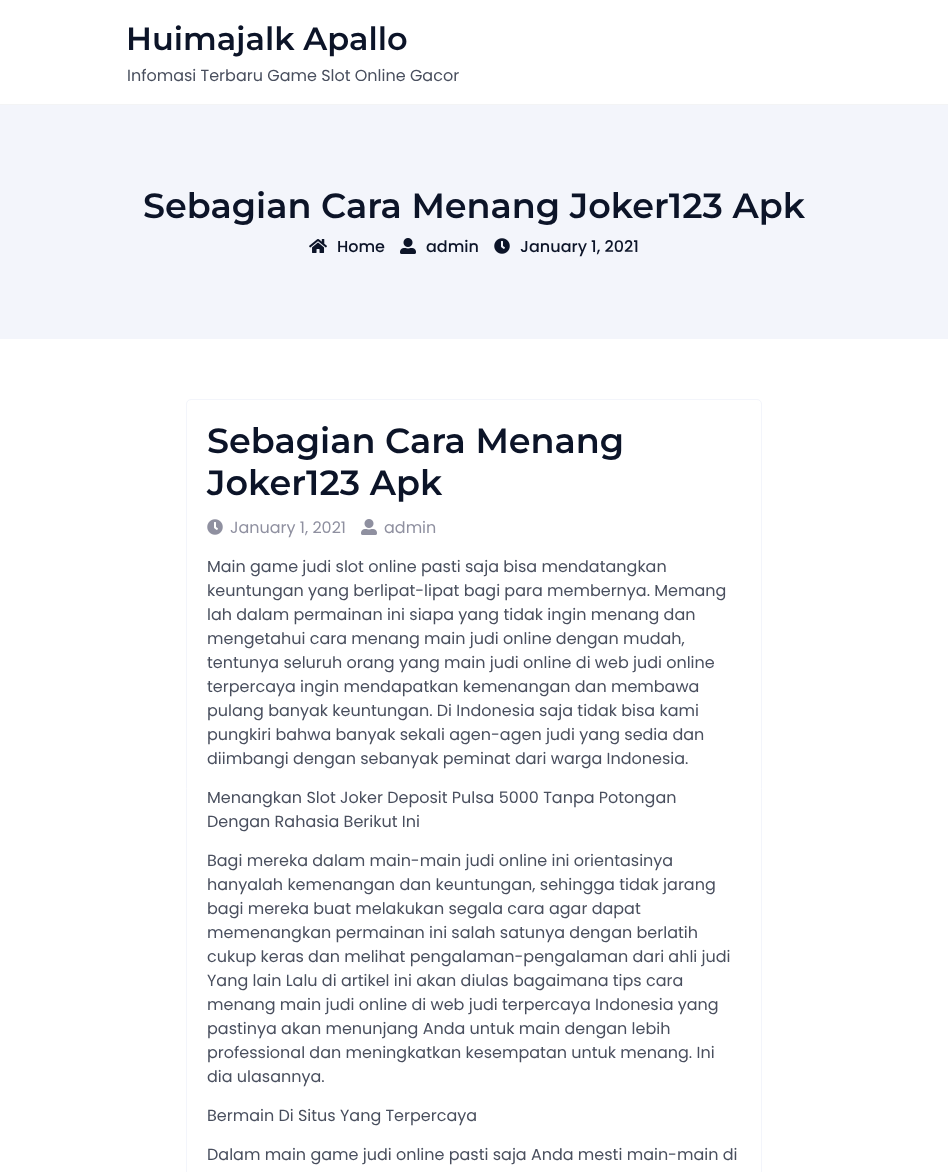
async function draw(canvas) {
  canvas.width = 948
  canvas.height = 1172
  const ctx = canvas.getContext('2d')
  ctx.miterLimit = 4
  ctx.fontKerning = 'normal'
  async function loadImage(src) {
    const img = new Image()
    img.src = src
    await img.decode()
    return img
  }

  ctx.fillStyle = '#fff'
  ctx.fillRect(0, 0, 948, 1172)
  ctx.fillStyle = '#f3f4f5'
  ctx.fillRect(0, 104, 948, 1)
  ctx.font = '600 32px Montserrat'
  ctx.fillStyle = '#0c1428'
  ctx.fillText('Huimajalk Apallo', 126, 50)
  ctx.font = '16px Poppins'
  ctx.fillStyle = '#494f5e'
  ctx.fillText('Infomasi Terbaru Game Slot Online Gacor', 127, 81)
  ctx.fillStyle = '#f3f5fb'
  ctx.fillRect(0, 105, 948, 234)
  ctx.font = '600 35px Montserrat'
  ctx.fillStyle = '#0c1428'
  ctx.fillText('Sebagian Cara Menang Joker123 Apk', 143, 218)
  ctx.drawImage(await loadImage('image0.png'), 309, 239, 18, 14)
  ctx.font = '500 16px Poppins'
  ctx.fillText('Home', 337, 252)
  ctx.drawImage(await loadImage('image1.png'), 400, 238, 16, 16)
  ctx.fillText('admin', 426, 252)
  ctx.drawImage(await loadImage('image2.png'), 494, 238, 16, 16)
  ctx.fillText('January 1, 2021', 520, 252)
  ctx.beginPath()
  ctx.roundRect(186.5, 399.5, 575, 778, 4.5)
  ctx.strokeStyle = '#f3f5fb'
  ctx.stroke()
  ctx.font = '600 35px Montserrat'
  ctx.fillText('Sebagian Cara Menang', 207, 453)
  ctx.fillText('Joker123 Apk', 207, 495)
  ctx.drawImage(await loadImage('image3.png'), 207, 519, 16, 16)
  ctx.font = '16px Poppins'
  ctx.fillStyle = '#8f90a0'
  ctx.fillText('January 1, 2021', 230, 533)
  ctx.drawImage(await loadImage('image4.png'), 361, 519, 16, 16)
  ctx.fillText('admin', 384, 533)
  ctx.fillStyle = '#494f5e'
  ctx.fillText('Main game judi slot online pasti saja bisa mendatangkan', 207, 572)
  ctx.fillText('keuntungan yang berlipat-lipat bagi para membernya. Memang', 207, 596)
  ctx.fillText('lah dalam permainan ini siapa yang tidak ingin menang dan', 207, 620)
  ctx.fillText('mengetahui cara menang main judi online dengan mudah,', 207, 644)
  ctx.fillText('tentunya seluruh orang yang main judi online di web judi online', 207, 668)
  ctx.fillText('terpercaya ingin mendapatkan kemenangan dan membawa', 207, 692)
  ctx.fillText('pulang banyak keuntungan. Di Indonesia saja tidak bisa kami', 207, 716)
  ctx.fillText('pungkiri bahwa banyak sekali agen-agen judi yang sedia dan', 207, 740)
  ctx.fillText('diimbangi dengan sebanyak peminat dari warga Indonesia.', 207, 764)
  ctx.fillText('Menangkan Slot Joker Deposit Pulsa 5000 Tanpa Potongan', 207, 803)
  ctx.fillText('Dengan Rahasia Berikut Ini', 207, 827)
  ctx.fillText('Bagi mereka dalam main-main judi online ini orientasinya', 207, 866)
  ctx.fillText('hanyalah kemenangan dan keuntungan, sehingga tidak jarang', 207, 890)
  ctx.fillText('bagi mereka buat melakukan segala cara agar dapat', 207, 914)
  ctx.fillText('memenangkan permainan ini salah satunya dengan berlatih', 207, 938)
  ctx.fillText('cukup keras dan melihat pengalaman-pengalaman dari ahli judi', 207, 962)
  ctx.fillText('Yang lain Lalu di artikel ini akan diulas bagaimana tips cara', 207, 986)
  ctx.fillText('menang main judi online di web judi terpercaya Indonesia yang', 207, 1010)
  ctx.fillText('pastinya akan menunjang Anda untuk main dengan lebih', 207, 1034)
  ctx.fillText('professional dan meningkatkan kesempatan untuk menang. Ini', 207, 1058)
  ctx.fillText('dia ulasannya.', 207, 1082)
  ctx.fillText('Bermain Di Situs Yang Terpercaya', 207, 1121)
  ctx.fillText('Dalam main game judi online pasti saja Anda mesti main-main di', 207, 1160)
}

draw(document.querySelector('canvas'))
